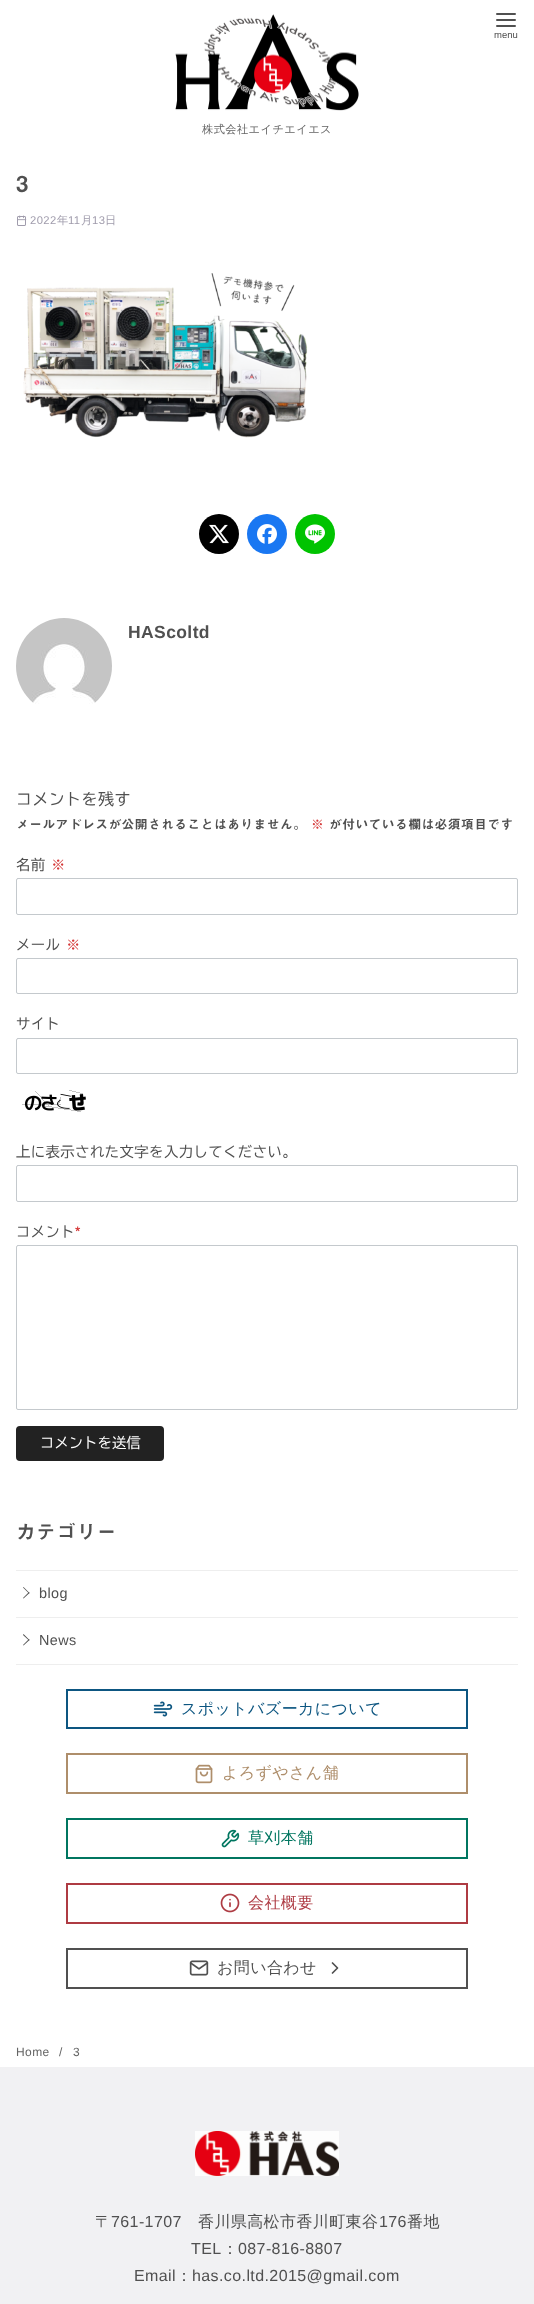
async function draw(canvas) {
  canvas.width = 534
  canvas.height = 2304
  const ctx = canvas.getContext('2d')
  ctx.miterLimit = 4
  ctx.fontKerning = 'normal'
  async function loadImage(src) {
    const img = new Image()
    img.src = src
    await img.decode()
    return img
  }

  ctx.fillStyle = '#fff'
  ctx.fillRect(0, 0, 534, 2304)
  ctx.beginPath()
  ctx.moveTo(497, 20)
  ctx.lineTo(515, 20)
  ctx.moveTo(497, 14)
  ctx.lineTo(515, 14)
  ctx.moveTo(497, 26)
  ctx.lineTo(515, 26)
  ctx.strokeStyle = '#505050'
  ctx.lineWidth = 2
  ctx.lineCap = 'round'
  ctx.lineJoin = 'round'
  ctx.stroke()
  ctx.font = '9.5px Liberation Sans'
  ctx.fillStyle = '#505050'
  ctx.fillText('menu', 494, 38)
  ctx.drawImage(await loadImage('image0.png'), 175, 14, 184, 97)
  ctx.letterSpacing = '0.4px'
  ctx.font = '500 11.25px WenQuanYi Zen Hei'
  ctx.fillStyle = '#656565'
  ctx.fillText('株式会社エイチエイエス', 202, 133)
  ctx.letterSpacing = '1px'
  ctx.font = '600 22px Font'
  ctx.fillStyle = '#505050'
  ctx.fillText('3', 16, 192)
  ctx.drawImage(await loadImage('image1.png'), 17, 215, 10, 11)
  ctx.letterSpacing = '0.4px'
  ctx.font = '11.25px Liberation Sans'
  ctx.fillStyle = '#a09cac'
  ctx.fillText('2022', 30, 224)
  ctx.font = '500 11.25px WenQuanYi Zen Hei'
  ctx.fillText('年', 57, 224)
  ctx.font = '11.25px Liberation Sans'
  ctx.fillText('11', 68, 224)
  ctx.font = '500 11.25px WenQuanYi Zen Hei'
  ctx.fillText('月', 81, 224)
  ctx.font = '11.25px Liberation Sans'
  ctx.fillText('13', 92, 224)
  ctx.font = '500 11.25px WenQuanYi Zen Hei'
  ctx.fillText('日', 105, 224)
  ctx.drawImage(await loadImage('image2.png'), 23, 273, 285, 165)
  ctx.fillStyle = '#000'
  ctx.beginPath()
  ctx.arc(219, 534, 20, 0, 2 * Math.PI)
  ctx.fill()
  ctx.drawImage(await loadImage('image3.png'), 209, 524, 20, 20)
  ctx.fillStyle = '#1977f2'
  ctx.beginPath()
  ctx.arc(267, 534, 20, 0, 2 * Math.PI)
  ctx.fill()
  ctx.drawImage(await loadImage('image4.png'), 257, 524, 20, 20)
  ctx.fillStyle = '#00c300'
  ctx.beginPath()
  ctx.arc(315, 534, 20, 0, 2 * Math.PI)
  ctx.fill()
  ctx.drawImage(await loadImage('image5.png'), 305, 524, 20, 20)
  ctx.drawImage(await loadImage('image6.png'), 16, 618, 96, 86)
  ctx.font = 'bold 17.5px Liberation Sans'
  ctx.fillStyle = '#505050'
  ctx.fillText('HAScoltd', 128, 638)
  ctx.font = '16px Font'
  ctx.fillText('コメントを残す', 16, 805)
  ctx.font = '600 12.8px Font'
  ctx.fillText('メールアドレスが公開されることはありません。', 16, 829)
  ctx.fillStyle = '#d53939'
  ctx.fillText('※', 311, 829)
  ctx.fillStyle = '#505050'
  ctx.fillText('が付いている欄は必須項目です', 329, 829)
  ctx.font = '14.4px Font'
  ctx.fillText('名前', 16, 870)
  ctx.font = '600 14.4px Font'
  ctx.fillStyle = '#d53939'
  ctx.fillText('※', 51, 870)
  ctx.beginPath()
  ctx.roundRect(16.5, 878.5, 501, 36, 1.5)
  ctx.strokeStyle = '#c4c9cd'
  ctx.lineWidth = 1
  ctx.lineJoin = 'miter'
  ctx.stroke()
  ctx.font = '14.4px Font'
  ctx.fillStyle = '#505050'
  ctx.fillText('メール', 16, 950)
  ctx.font = '600 14.4px Font'
  ctx.fillStyle = '#d53939'
  ctx.fillText('※', 66, 950)
  ctx.beginPath()
  ctx.roundRect(16.5, 958.5, 501, 35, 1.5)
  ctx.stroke()
  ctx.font = '14.4px Font'
  ctx.fillStyle = '#505050'
  ctx.fillText('サイト', 16, 1029)
  ctx.beginPath()
  ctx.roundRect(16.5, 1038.5, 501, 35, 1.5)
  ctx.stroke()
  ctx.drawImage(await loadImage('image7.png'), 22, 1090, 64, 22)
  ctx.fillText('上に表示された文字を入力してください。', 16, 1157)
  ctx.beginPath()
  ctx.roundRect(16.5, 1165.5, 501, 36, 1.5)
  ctx.stroke()
  ctx.fillText('コメント', 16, 1237)
  ctx.font = '600 14.4px Font'
  ctx.fillStyle = '#d53939'
  ctx.fillText('*', 75, 1237)
  ctx.beginPath()
  ctx.roundRect(16.5, 1245.5, 501, 164, 1.5)
  ctx.stroke()
  ctx.fillStyle = '#222'
  ctx.beginPath()
  ctx.roundRect(17, 1427, 146, 33, 3)
  ctx.fill()
  ctx.strokeStyle = '#222'
  ctx.lineWidth = 2
  ctx.stroke()
  ctx.letterSpacing = '0px'
  ctx.font = '14.4px Font'
  ctx.fillStyle = '#fff'
  ctx.fillText('コメントを送信', 40, 1448)
  ctx.letterSpacing = '1px'
  ctx.font = '600 19.25px Font'
  ctx.fillStyle = '#505050'
  ctx.fillText('カテゴリー', 16, 1539)
  ctx.fillStyle = '#eee'
  ctx.fillRect(16, 1570, 502, 1)
  ctx.fillRect(16, 1664, 502, 1)
  ctx.fillRect(16, 1617, 502, 1)
  ctx.fillStyle = '#505050'
  ctx.beginPath()
  ctx.moveTo(23, 1587.5)
  ctx.lineTo(23.5, 1587)
  ctx.lineTo(29.5, 1593)
  ctx.lineTo(29, 1593.5)
  ctx.closePath()
  ctx.fill()
  ctx.beginPath()
  ctx.moveTo(23, 1598)
  ctx.lineTo(29, 1592)
  ctx.lineTo(29.5, 1593)
  ctx.lineTo(23.5, 1598.5)
  ctx.closePath()
  ctx.fill()
  ctx.letterSpacing = '0.4px'
  ctx.font = '14.4px Liberation Sans'
  ctx.fillText('blog', 39, 1598)
  ctx.beginPath()
  ctx.moveTo(23, 1635)
  ctx.lineTo(23.5, 1634)
  ctx.lineTo(29.5, 1640)
  ctx.lineTo(29, 1640.5)
  ctx.closePath()
  ctx.fill()
  ctx.beginPath()
  ctx.moveTo(23, 1645)
  ctx.lineTo(29, 1639)
  ctx.lineTo(29.5, 1640)
  ctx.lineTo(23.5, 1645.5)
  ctx.closePath()
  ctx.fill()
  ctx.fillText('News', 39, 1645)
  ctx.strokeStyle = '#0d5681'
  ctx.strokeRect(67, 1690, 400, 38)
  ctx.drawImage(await loadImage('image8.png'), 153, 1701, 20, 16)
  ctx.font = '500 16px WenQuanYi Zen Hei'
  ctx.fillStyle = '#0d5681'
  ctx.fillText('スポットバズーカについて', 181, 1714)
  ctx.strokeStyle = '#ae8e6b'
  ctx.strokeRect(67, 1754, 400, 39)
  ctx.drawImage(await loadImage('image9.png'), 195, 1764, 18, 20)
  ctx.fillStyle = '#ae8e6b'
  ctx.fillText('よろずやさん舗', 222, 1778)
  ctx.strokeStyle = '#007660'
  ctx.strokeRect(67, 1819, 400, 39)
  ctx.drawImage(await loadImage('image10.png'), 221, 1829, 19, 19)
  ctx.fillStyle = '#007660'
  ctx.fillText('草刈本舗', 248, 1843)
  ctx.strokeStyle = '#ae3b43'
  ctx.strokeRect(67, 1884, 400, 39)
  ctx.drawImage(await loadImage('image11.png'), 220, 1893, 20, 20)
  ctx.fillStyle = '#ae3b43'
  ctx.fillText('会社概要', 248, 1908)
  ctx.strokeStyle = '#505050'
  ctx.strokeRect(67, 1949, 400, 39)
  ctx.drawImage(await loadImage('image12.png'), 189, 1960, 20, 16)
  ctx.fillStyle = '#505050'
  ctx.fillText('お問い合わせ', 217, 1973)
  ctx.beginPath()
  ctx.moveTo(332.5, 1973)
  ctx.lineTo(337.5, 1968)
  ctx.lineTo(332.5, 1963)
  ctx.lineWidth = 1.7
  ctx.lineJoin = 'round'
  ctx.stroke()
  ctx.font = '12px Liberation Sans'
  ctx.fillStyle = '#656565'
  ctx.fillText('Home', 16, 2056)
  ctx.fillText('/', 59, 2056)
  ctx.fillText('3', 73, 2056)
  ctx.fillStyle = '#f1f1f3'
  ctx.fillRect(0, 2067, 534, 237)
  ctx.drawImage(await loadImage('image13.png'), 195, 2131, 144, 45)
  ctx.font = '500 16px WenQuanYi Zen Hei'
  ctx.fillStyle = '#505050'
  ctx.fillText('〒', 95, 2227)
  ctx.font = '16px Liberation Sans'
  ctx.fillText('761-1707', 111, 2227)
  ctx.font = '500 16px WenQuanYi Zen Hei'
  ctx.fillText('香川県高松市香川町東谷', 198, 2227)
  ctx.font = '16px Liberation Sans'
  ctx.fillText('176', 379, 2227)
  ctx.font = '500 16px WenQuanYi Zen Hei'
  ctx.fillText('番地', 407, 2227)
  ctx.font = '16px Liberation Sans'
  ctx.fillText('TEL', 191, 2254)
  ctx.font = '500 16px WenQuanYi Zen Hei'
  ctx.fillText('：', 222, 2254)
  ctx.font = '16px Liberation Sans'
  ctx.fillText('087-816-8807', 238, 2254)
  ctx.fillText('Email', 134, 2281)
  ctx.font = '500 16px WenQuanYi Zen Hei'
  ctx.fillText('：', 176, 2281)
  ctx.font = '16px Liberation Sans'
  ctx.fillText('has.co.ltd.2015@gmail.com', 192, 2281)
}

draw(document.querySelector('canvas'))
